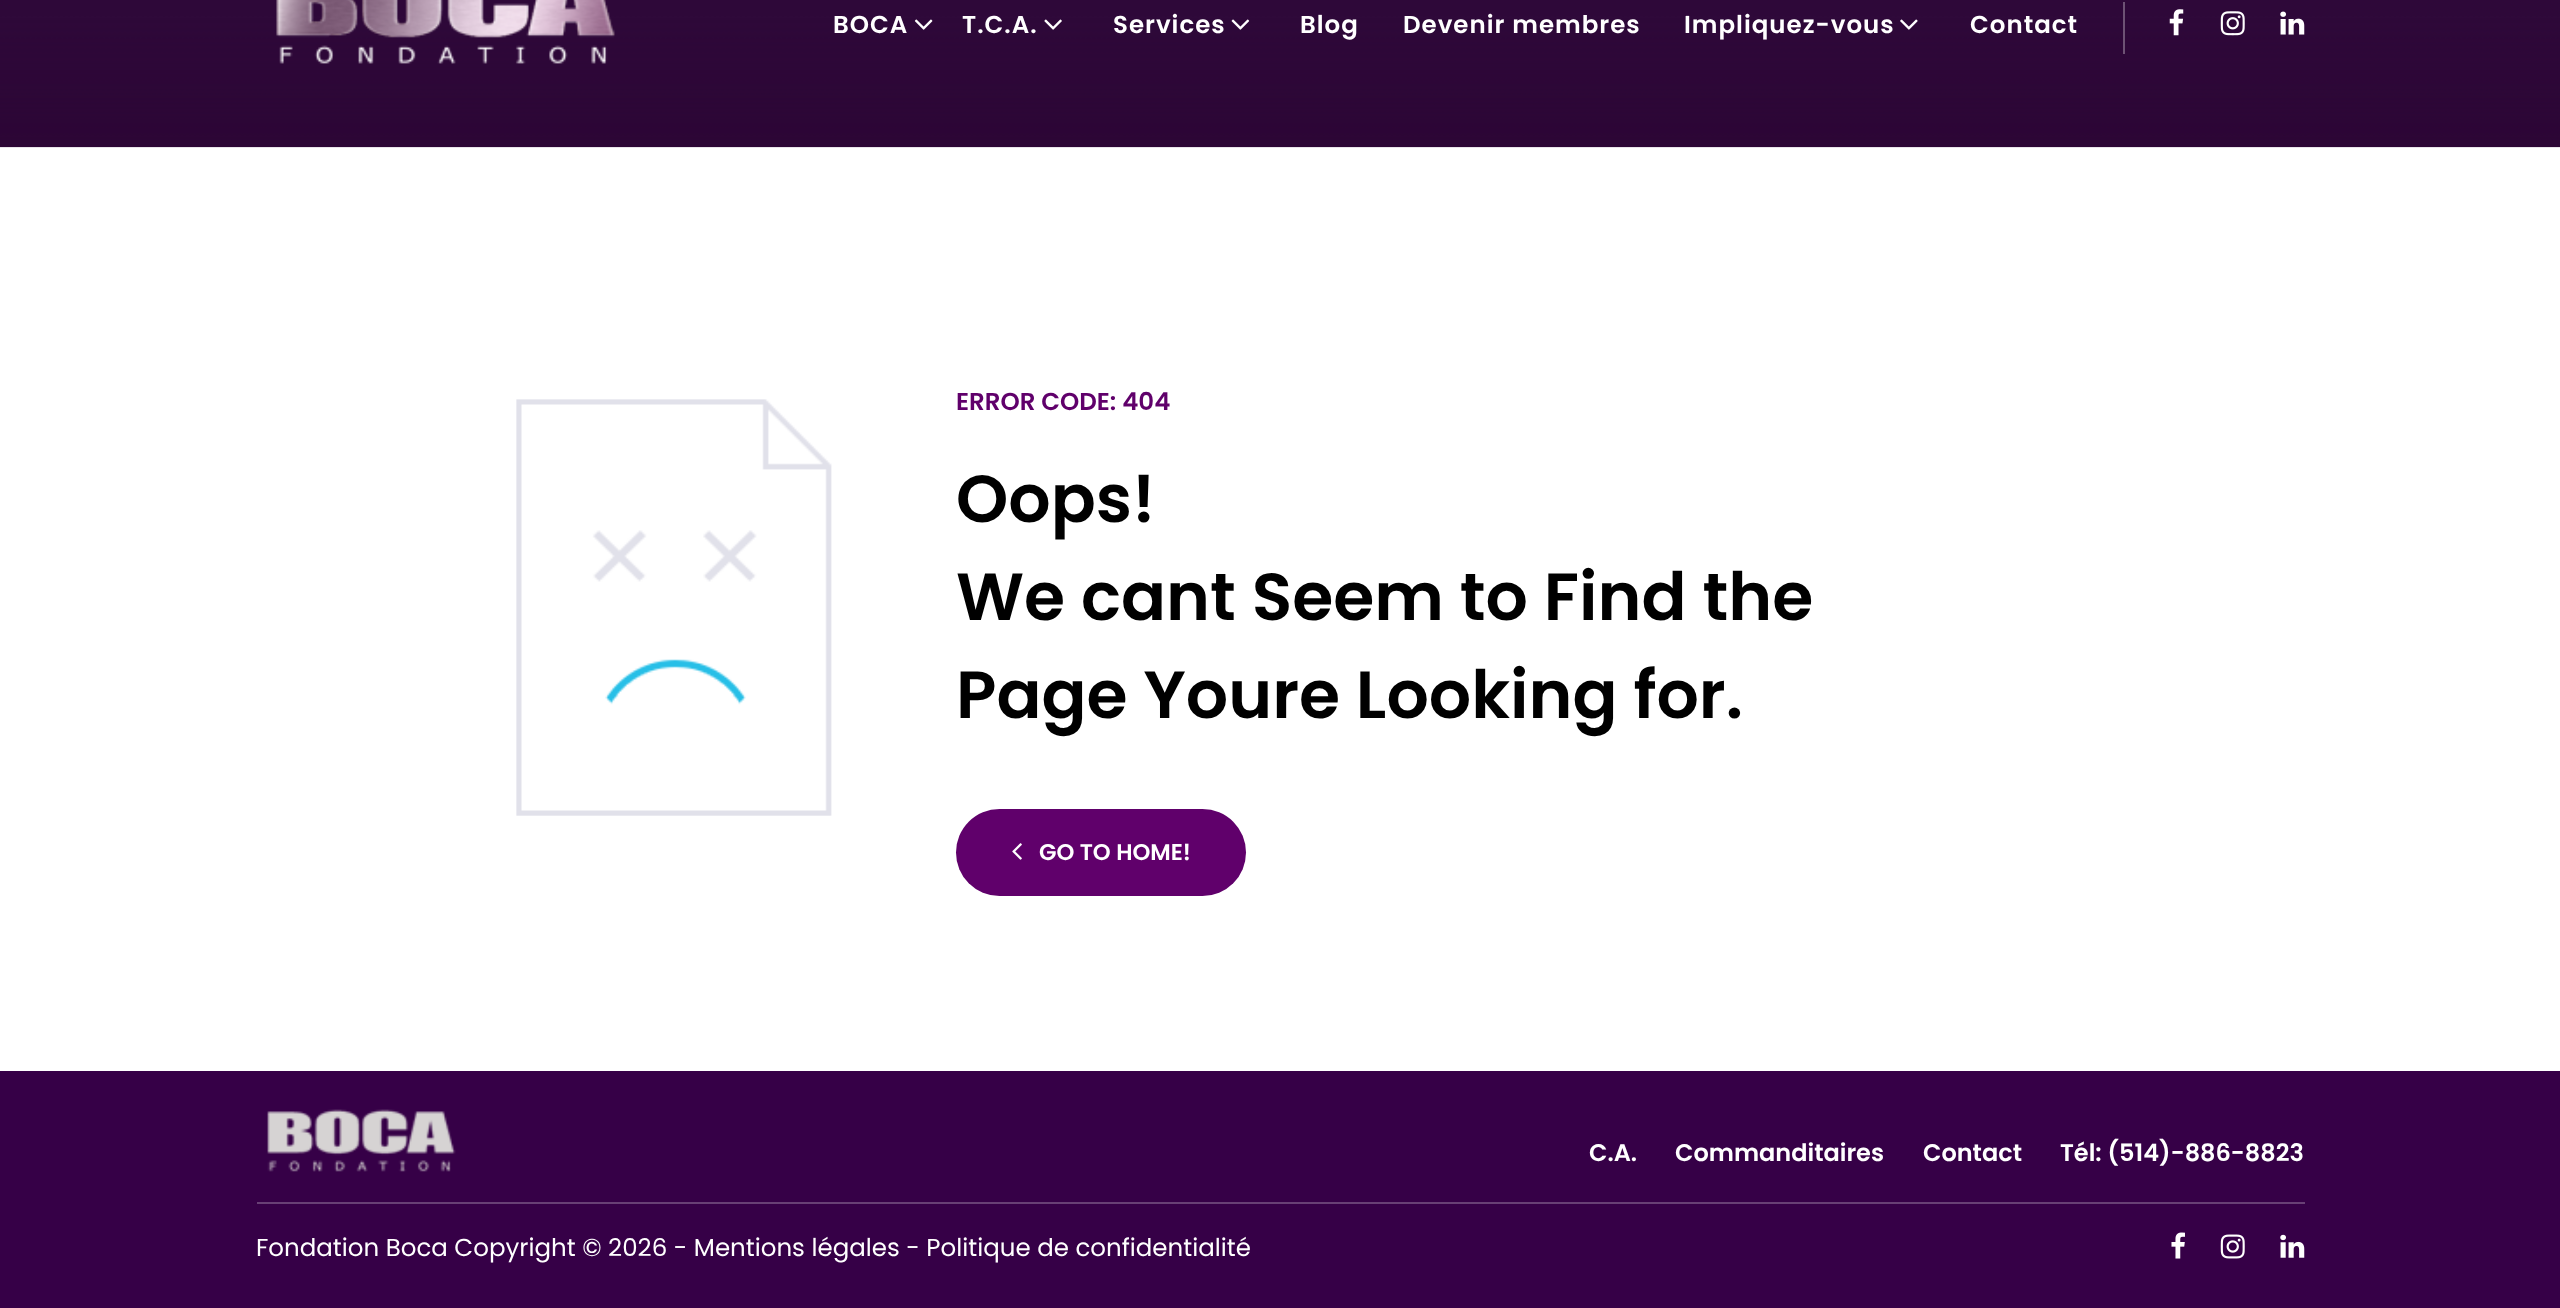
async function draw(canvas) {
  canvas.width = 2560
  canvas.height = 1308
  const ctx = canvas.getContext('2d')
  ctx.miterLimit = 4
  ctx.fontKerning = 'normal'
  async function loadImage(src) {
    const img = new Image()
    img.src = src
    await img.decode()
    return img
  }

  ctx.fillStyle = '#fff'
  ctx.fillRect(0, 0, 2560, 1308)
  ctx.fillStyle = '#2b0433'
  ctx.fillRect(0, 18, 2560, 129)
  ctx.drawImage(await loadImage('image0.png'), 0, 0, 2560, 148)
  ctx.drawImage(await loadImage('image1.png'), 276, 0, 339, 64)
  ctx.letterSpacing = '1px'
  ctx.font = '600 24.5px Poppins'
  ctx.fillStyle = '#fff'
  ctx.fillText('BOCA', 833, 33)
  ctx.drawImage(await loadImage('image2.png'), 914, 19, 19, 11)
  ctx.fillText('T.C.A.', 962, 33)
  ctx.drawImage(await loadImage('image3.png'), 1044, 19, 18, 11)
  ctx.fillText('Services', 1113, 33)
  ctx.drawImage(await loadImage('image4.png'), 1231, 19, 19, 11)
  ctx.fillText('Blog', 1300, 33)
  ctx.fillText('Devenir membres', 1403, 33)
  ctx.fillText('Impliquez-vous', 1684, 33)
  ctx.drawImage(await loadImage('image5.png'), 1900, 19, 18, 11)
  ctx.fillText('Contact', 1970, 33)
  ctx.fillStyle = '#6d5274'
  ctx.fillRect(2123, 2, 2, 52)
  ctx.drawImage(await loadImage('image6.png'), 2169, 9, 15, 27)
  ctx.drawImage(await loadImage('image7.png'), 2220, 11, 25, 25)
  ctx.drawImage(await loadImage('image8.png'), 2280, 11, 25, 24)
  ctx.drawImage(await loadImage('image9.png'), 516, 399, 316, 417)
  ctx.letterSpacing = '0px'
  ctx.fillStyle = '#60006b'
  ctx.fillText('ERROR CODE: 404', 956, 410)
  ctx.font = '600 66.5px Poppins'
  ctx.fillStyle = '#000'
  ctx.fillText('Oops!', 956, 522)
  ctx.fillText('We cant Seem to Find the', 956, 620)
  ctx.fillText('Page Youre Looking for.', 956, 718)
  ctx.fillStyle = '#60006b'
  ctx.beginPath()
  ctx.roundRect(956, 809, 290, 87, 43.5)
  ctx.fill()
  ctx.drawImage(await loadImage('image10.png'), 1012, 843, 10, 17)
  ctx.font = '600 22.75px Poppins'
  ctx.fillStyle = '#fff'
  ctx.fillText('GO TO HOME!', 1039, 860)
  ctx.fillStyle = '#360047'
  ctx.fillRect(0, 1071, 2560, 237)
  ctx.drawImage(await loadImage('image11.png'), 267, 1109, 189, 63)
  ctx.font = '600 24px Poppins'
  ctx.fillStyle = '#fff'
  ctx.fillText('C.A.', 1589, 1161)
  ctx.fillText('Commanditaires', 1675, 1161)
  ctx.fillText('Contact', 1923, 1161)
  ctx.fillText('Tél: (514)-886-8823', 2060, 1161)
  ctx.fillStyle = '#684075'
  ctx.fillRect(257, 1202, 2048, 2)
  ctx.font = '24.5px Poppins'
  ctx.fillStyle = '#fff'
  ctx.fillText('Fondation Boca Copyright © 2026 - Mentions légales - Politique de confidentialité', 256, 1256)
  ctx.drawImage(await loadImage('image12.png'), 2171, 1232, 14, 27)
  ctx.drawImage(await loadImage('image13.png'), 2220, 1234, 25, 25)
  ctx.drawImage(await loadImage('image14.png'), 2280, 1234, 25, 24)
}

draw(document.querySelector('canvas'))
